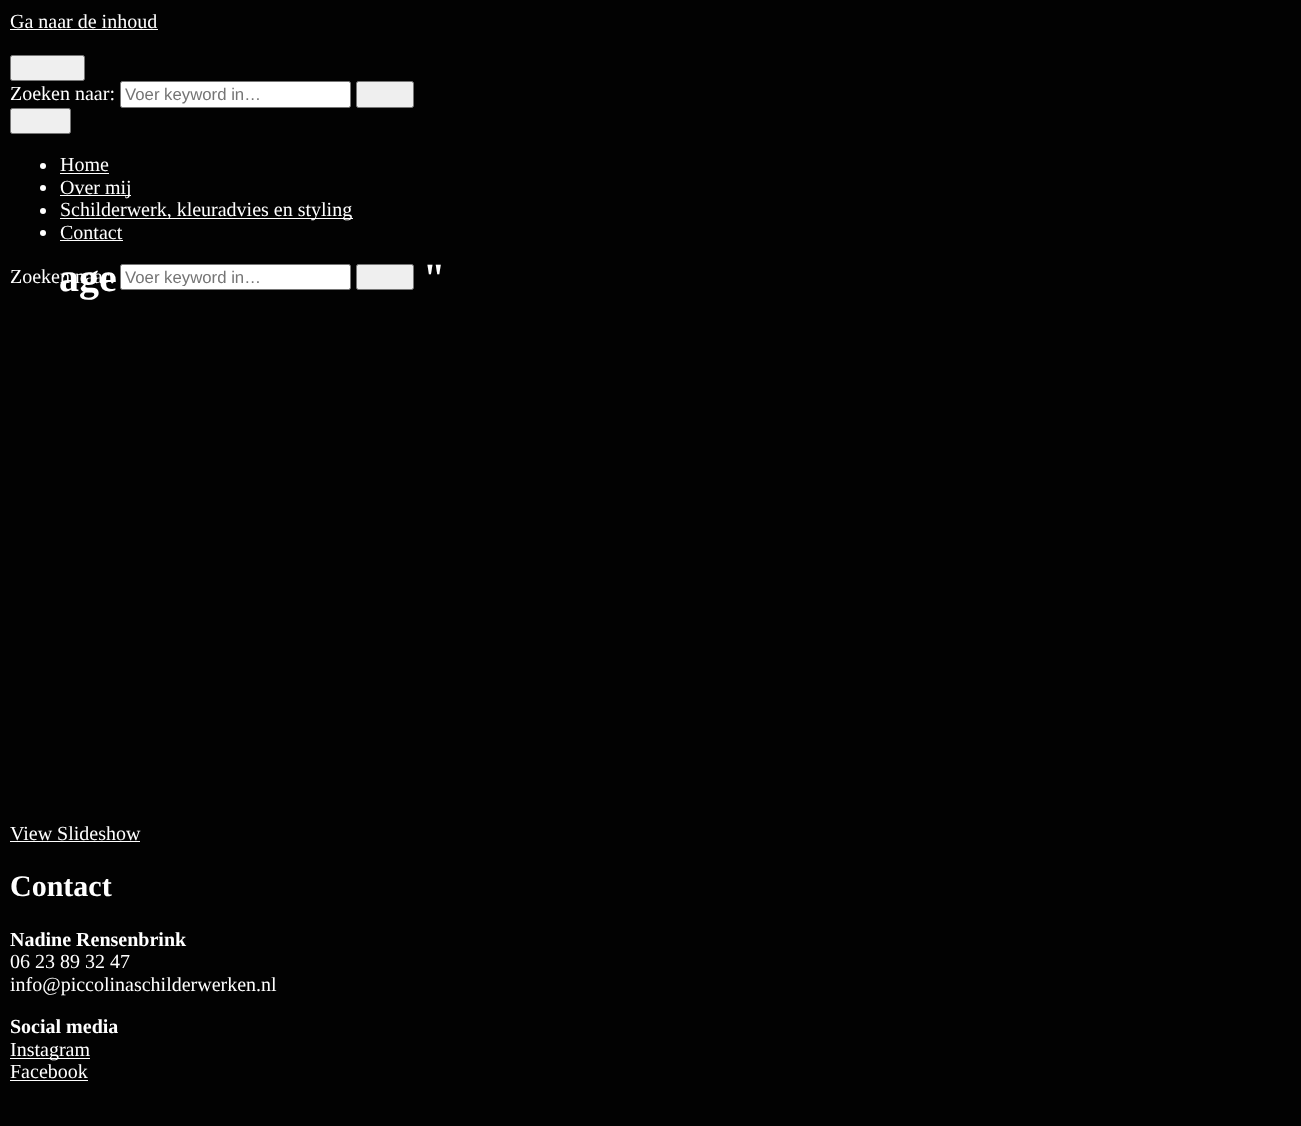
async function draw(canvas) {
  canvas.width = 1301
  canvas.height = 1126
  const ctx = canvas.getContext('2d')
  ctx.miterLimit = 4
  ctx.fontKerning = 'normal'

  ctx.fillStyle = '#020202'
  ctx.fillRect(0, 0, 1301, 1126)
  ctx.font = '20px Liberation Serif'
  ctx.fillStyle = '#fff'
  ctx.fillText('Ga naar de inhoud', 10, 28)
  ctx.fillRect(10, 29, 148, 1)
  ctx.fillStyle = '#efefef'
  ctx.beginPath()
  ctx.roundRect(10.5, 55.5, 74, 25, 2)
  ctx.fill()
  ctx.strokeStyle = '#767676'
  ctx.stroke()
  ctx.fillStyle = '#fff'
  ctx.fillText('Zoeken naar:', 10, 100)
  ctx.beginPath()
  ctx.roundRect(120.5, 81.5, 230, 26, 2)
  ctx.fill()
  ctx.stroke()
  ctx.font = '16.75px Liberation Sans'
  ctx.fillStyle = '#757575'
  ctx.fillText('Voer keyword in…', 125, 100)
  ctx.fillStyle = '#efefef'
  ctx.beginPath()
  ctx.roundRect(356.5, 81.5, 57, 26, 2)
  ctx.fill()
  ctx.stroke()
  ctx.beginPath()
  ctx.roundRect(10.5, 108.5, 60, 25, 2)
  ctx.fill()
  ctx.stroke()
  ctx.fillStyle = '#fff'
  ctx.beginPath()
  ctx.arc(43, 166, 3, 0, 2 * Math.PI)
  ctx.fill()
  ctx.font = '20px Liberation Serif'
  ctx.fillText('Home', 60, 171)
  ctx.fillRect(60, 173, 49, 1)
  ctx.beginPath()
  ctx.arc(43, 188, 3, 0, 2 * Math.PI)
  ctx.fill()
  ctx.fillRect(60, 195, 71, 1)
  ctx.fillText('Over mij', 60, 194)
  ctx.beginPath()
  ctx.arc(43, 211, 3, 0, 2 * Math.PI)
  ctx.fill()
  ctx.fillRect(60, 218, 293, 1)
  ctx.fillText('Schilderwerk, kleuradvies en styling', 60, 216)
  ctx.beginPath()
  ctx.arc(43, 233, 3, 0, 2 * Math.PI)
  ctx.fill()
  ctx.fillText('Contact', 60, 239)
  ctx.fillRect(60, 240, 63, 1)
  ctx.fillText('Zoeken naar:', 10, 283)
  ctx.beginPath()
  ctx.roundRect(120.5, 264.5, 230, 25, 2)
  ctx.fill()
  ctx.stroke()
  ctx.save()
  ctx.beginPath()
  ctx.rect(125, 268, 205, 18)
  ctx.clip()
  ctx.font = '16.75px Liberation Sans'
  ctx.fillStyle = '#757575'
  ctx.fillText('Voer keyword in…', 125, 283)
  ctx.restore()
  ctx.fillStyle = '#efefef'
  ctx.beginPath()
  ctx.roundRect(356.5, 264.5, 57, 25, 2)
  ctx.fill()
  ctx.stroke()
  ctx.font = 'bold 40px Liberation Serif'
  ctx.fillStyle = '#fff'
  ctx.fillText('age', 59, 291)
  ctx.fillText('"', 423, 291)
  ctx.font = '20px Liberation Serif'
  ctx.fillText('View Slideshow', 10, 840)
  ctx.fillRect(10, 841, 130, 1)
  ctx.font = 'bold 30px Liberation Serif'
  ctx.fillText('Contact', 10, 896)
  ctx.font = 'bold 20px Liberation Serif'
  ctx.fillText('Nadine Rensenbrink', 10, 946)
  ctx.font = '20px Liberation Serif'
  ctx.fillText('06 23 89 32 47', 10, 968)
  ctx.fillText('info@piccolinaschilderwerken.nl', 10, 991)
  ctx.font = 'bold 20px Liberation Serif'
  ctx.fillText('Social media', 10, 1033)
  ctx.fillRect(10, 1058, 80, 1)
  ctx.font = '20px Liberation Serif'
  ctx.fillText('Instagram', 10, 1056)
  ctx.fillText('Facebook', 10, 1078)
  ctx.fillRect(10, 1080, 78, 1)
}

draw(document.querySelector('canvas'))
